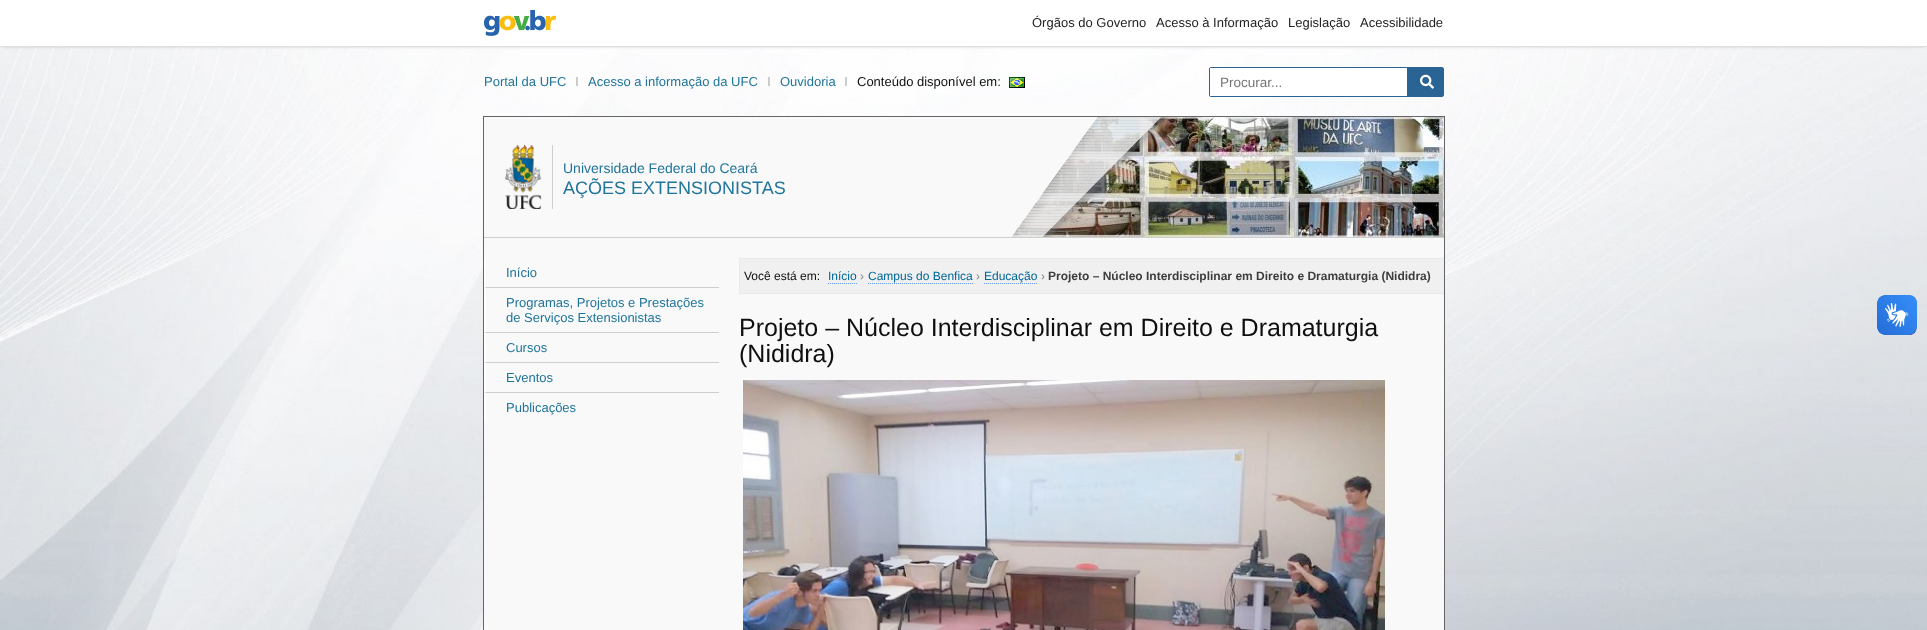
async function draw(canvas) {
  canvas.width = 1927
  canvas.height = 630
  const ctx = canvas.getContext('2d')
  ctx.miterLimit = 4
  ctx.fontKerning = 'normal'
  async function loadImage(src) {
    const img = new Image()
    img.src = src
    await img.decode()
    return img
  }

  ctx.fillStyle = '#fff'
  ctx.fillRect(0, 0, 1927, 630)
  ctx.drawImage(await loadImage('image0.png'), 0, 47, 1927, 583)
  ctx.fillStyle = '#333'
  ctx.filter = 'blur(2.5px)'
  ctx.beginPath()
  ctx.rect(3, 3, 1921, 41)
  ctx.fill()
  ctx.filter = 'none'
  ctx.fillStyle = '#fff'
  ctx.fillRect(0, 0, 1927, 46)
  ctx.fillStyle = '#dfdfdf'
  ctx.fillRect(0, 46, 1927, 1)
  ctx.drawImage(await loadImage('image1.png'), 484, 10, 72, 26)
  ctx.font = '13px Liberation Sans'
  ctx.fillStyle = '#232323'
  ctx.fillText('Órgãos do Governo', 1032, 27)
  ctx.fillText('Acesso à Informação', 1156, 27)
  ctx.fillText('Legislação', 1288, 27)
  ctx.fillText('Acessibilidade', 1360, 27)
  ctx.fillStyle = '#21759b'
  ctx.fillText('Portal da UFC', 484, 86)
  ctx.fillStyle = '#ccc'
  ctx.fillRect(576, 77, 2, 9)
  ctx.fillStyle = '#21759b'
  ctx.fillText('Acesso a informação da UFC', 588, 86)
  ctx.fillStyle = '#ccc'
  ctx.fillRect(768, 77, 2, 9)
  ctx.fillStyle = '#21759b'
  ctx.fillText('Ouvidoria', 780, 86)
  ctx.fillStyle = '#ccc'
  ctx.fillRect(845, 77, 2, 9)
  ctx.fillStyle = '#0f0f0f'
  ctx.fillText('Conteúdo disponível em:', 857, 86)
  ctx.drawImage(await loadImage('image2.png'), 1009, 77, 16, 11)
  ctx.beginPath()
  ctx.roundRect(1209.5, 67.5, 234, 29, 1.5)
  ctx.strokeStyle = '#296494'
  ctx.stroke()
  ctx.fillStyle = '#296494'
  ctx.fillRect(1407, 68, 36, 28)
  ctx.fillStyle = '#fff'
  ctx.fillRect(1210, 68, 197, 28)
  ctx.font = '13.5px Liberation Sans'
  ctx.fillStyle = '#757575'
  ctx.fillText('Procurar...', 1220, 87)
  ctx.drawImage(await loadImage('image3.png'), 1420, 74, 14, 15)
  ctx.strokeStyle = '#656565'
  ctx.strokeRect(483.5, 116.5, 961, 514)
  ctx.fillStyle = '#f9f9f9'
  ctx.fillRect(484, 117, 960, 513)
  ctx.fillStyle = '#cfcfcf'
  ctx.fillRect(484, 237, 960, 1)
  ctx.fillRect(552, 145, 1, 64)
  ctx.drawImage(await loadImage('image4.png'), 505, 145, 37, 64)
  ctx.font = '14px Liberation Sans'
  ctx.fillStyle = '#21759b'
  ctx.fillText('Universidade Federal do Ceará', 563, 173)
  ctx.font = '18px Liberation Sans'
  ctx.fillText('AÇÕES EXTENSIONISTAS', 563, 194)
  ctx.drawImage(await loadImage('image5.png'), 1011, 117, 433, 120)
  ctx.drawImage(await loadImage('image6.png'), 996, 117, 175, 120)
  ctx.fillStyle = '#cfcfcf'
  ctx.beginPath()
  ctx.moveTo(719, 288)
  ctx.lineTo(484, 288)
  ctx.lineTo(486, 287)
  ctx.lineTo(719, 287)
  ctx.closePath()
  ctx.fill()
  ctx.fillStyle = '#fff'
  ctx.beginPath()
  ctx.moveTo(484, 288)
  ctx.lineTo(484, 258)
  ctx.lineTo(486, 258)
  ctx.lineTo(486, 287)
  ctx.closePath()
  ctx.fill()
  ctx.font = '13px Liberation Sans'
  ctx.fillStyle = '#21759b'
  ctx.fillText('Início', 506, 277)
  ctx.fillStyle = '#cfcfcf'
  ctx.beginPath()
  ctx.moveTo(719, 333)
  ctx.lineTo(484, 333)
  ctx.lineTo(486, 332)
  ctx.lineTo(719, 332)
  ctx.closePath()
  ctx.fill()
  ctx.fillStyle = '#fff'
  ctx.beginPath()
  ctx.moveTo(484, 333)
  ctx.lineTo(484, 288)
  ctx.lineTo(486, 288)
  ctx.lineTo(486, 332)
  ctx.closePath()
  ctx.fill()
  ctx.fillStyle = '#21759b'
  ctx.fillText('Programas, Projetos e Prestações', 506, 307)
  ctx.fillText('de Serviços Extensionistas', 506, 322)
  ctx.fillStyle = '#cfcfcf'
  ctx.beginPath()
  ctx.moveTo(719, 363)
  ctx.lineTo(484, 363)
  ctx.lineTo(486, 362)
  ctx.lineTo(719, 362)
  ctx.closePath()
  ctx.fill()
  ctx.fillStyle = '#fff'
  ctx.beginPath()
  ctx.moveTo(484, 363)
  ctx.lineTo(484, 333)
  ctx.lineTo(486, 333)
  ctx.lineTo(486, 362)
  ctx.closePath()
  ctx.fill()
  ctx.fillStyle = '#21759b'
  ctx.fillText('Cursos', 506, 352)
  ctx.fillStyle = '#cfcfcf'
  ctx.beginPath()
  ctx.moveTo(719, 393)
  ctx.lineTo(484, 393)
  ctx.lineTo(486, 392)
  ctx.lineTo(719, 392)
  ctx.closePath()
  ctx.fill()
  ctx.fillStyle = '#fff'
  ctx.beginPath()
  ctx.moveTo(484, 393)
  ctx.lineTo(484, 363)
  ctx.lineTo(486, 363)
  ctx.lineTo(486, 392)
  ctx.closePath()
  ctx.fill()
  ctx.fillStyle = '#21759b'
  ctx.fillText('Eventos', 506, 382)
  ctx.fillStyle = '#fff'
  ctx.fillRect(484, 393, 2, 29)
  ctx.fillStyle = '#21759b'
  ctx.fillText('Publicações', 506, 412)
  ctx.fillStyle = '#f0f0f0'
  ctx.fillRect(740, 259, 704, 34)
  ctx.fillStyle = '#e8e8e8'
  ctx.fillRect(739, 258, 705, 1)
  ctx.fillRect(739, 293, 705, 1)
  ctx.fillRect(739, 258, 1, 36)
  ctx.font = '12px Liberation Sans'
  ctx.fillStyle = '#0f0f0f'
  ctx.fillText('Você está em:', 744, 280)
  ctx.fillStyle = '#069'
  ctx.fillText('Início', 828, 280)
  ctx.beginPath()
  ctx.moveTo(828, 283.5)
  ctx.lineTo(857, 283.5)
  ctx.strokeStyle = '#69f'
  ctx.setLineDash([1, 1])
  ctx.stroke()
  ctx.fillStyle = '#808080'
  ctx.fillText('›', 860, 280)
  ctx.fillStyle = '#069'
  ctx.fillText('Campus do Benfica', 868, 280)
  ctx.beginPath()
  ctx.moveTo(868, 283.5)
  ctx.lineTo(973, 283.5)
  ctx.stroke()
  ctx.fillStyle = '#808080'
  ctx.fillText('›', 976, 280)
  ctx.fillStyle = '#069'
  ctx.fillText('Educação', 984, 280)
  ctx.beginPath()
  ctx.moveTo(984, 283.5)
  ctx.lineTo(1037, 283.5)
  ctx.stroke()
  ctx.fillStyle = '#808080'
  ctx.fillText('›', 1041, 280)
  ctx.font = 'bold 12px Liberation Sans'
  ctx.fillStyle = '#3d3d3d'
  ctx.fillText('Projeto – Núcleo Interdisciplinar em Direito e Dramaturgia (Nididra)', 1048, 280)
  ctx.font = '25px Liberation Sans'
  ctx.fillStyle = '#0f0f0f'
  ctx.fillText('Projeto – Núcleo Interdisciplinar em Direito e Dramaturgia', 739, 336)
  ctx.fillText('(Nididra)', 739, 362)
  ctx.drawImage(await loadImage('image7.png'), 743, 380, 642, 250)
  ctx.drawImage(await loadImage('image8.png'), 1877, 295, 40, 40)
  ctx.drawImage(await loadImage('image9.png'), 1877, 295, 40, 40)
}

draw(document.querySelector('canvas'))
